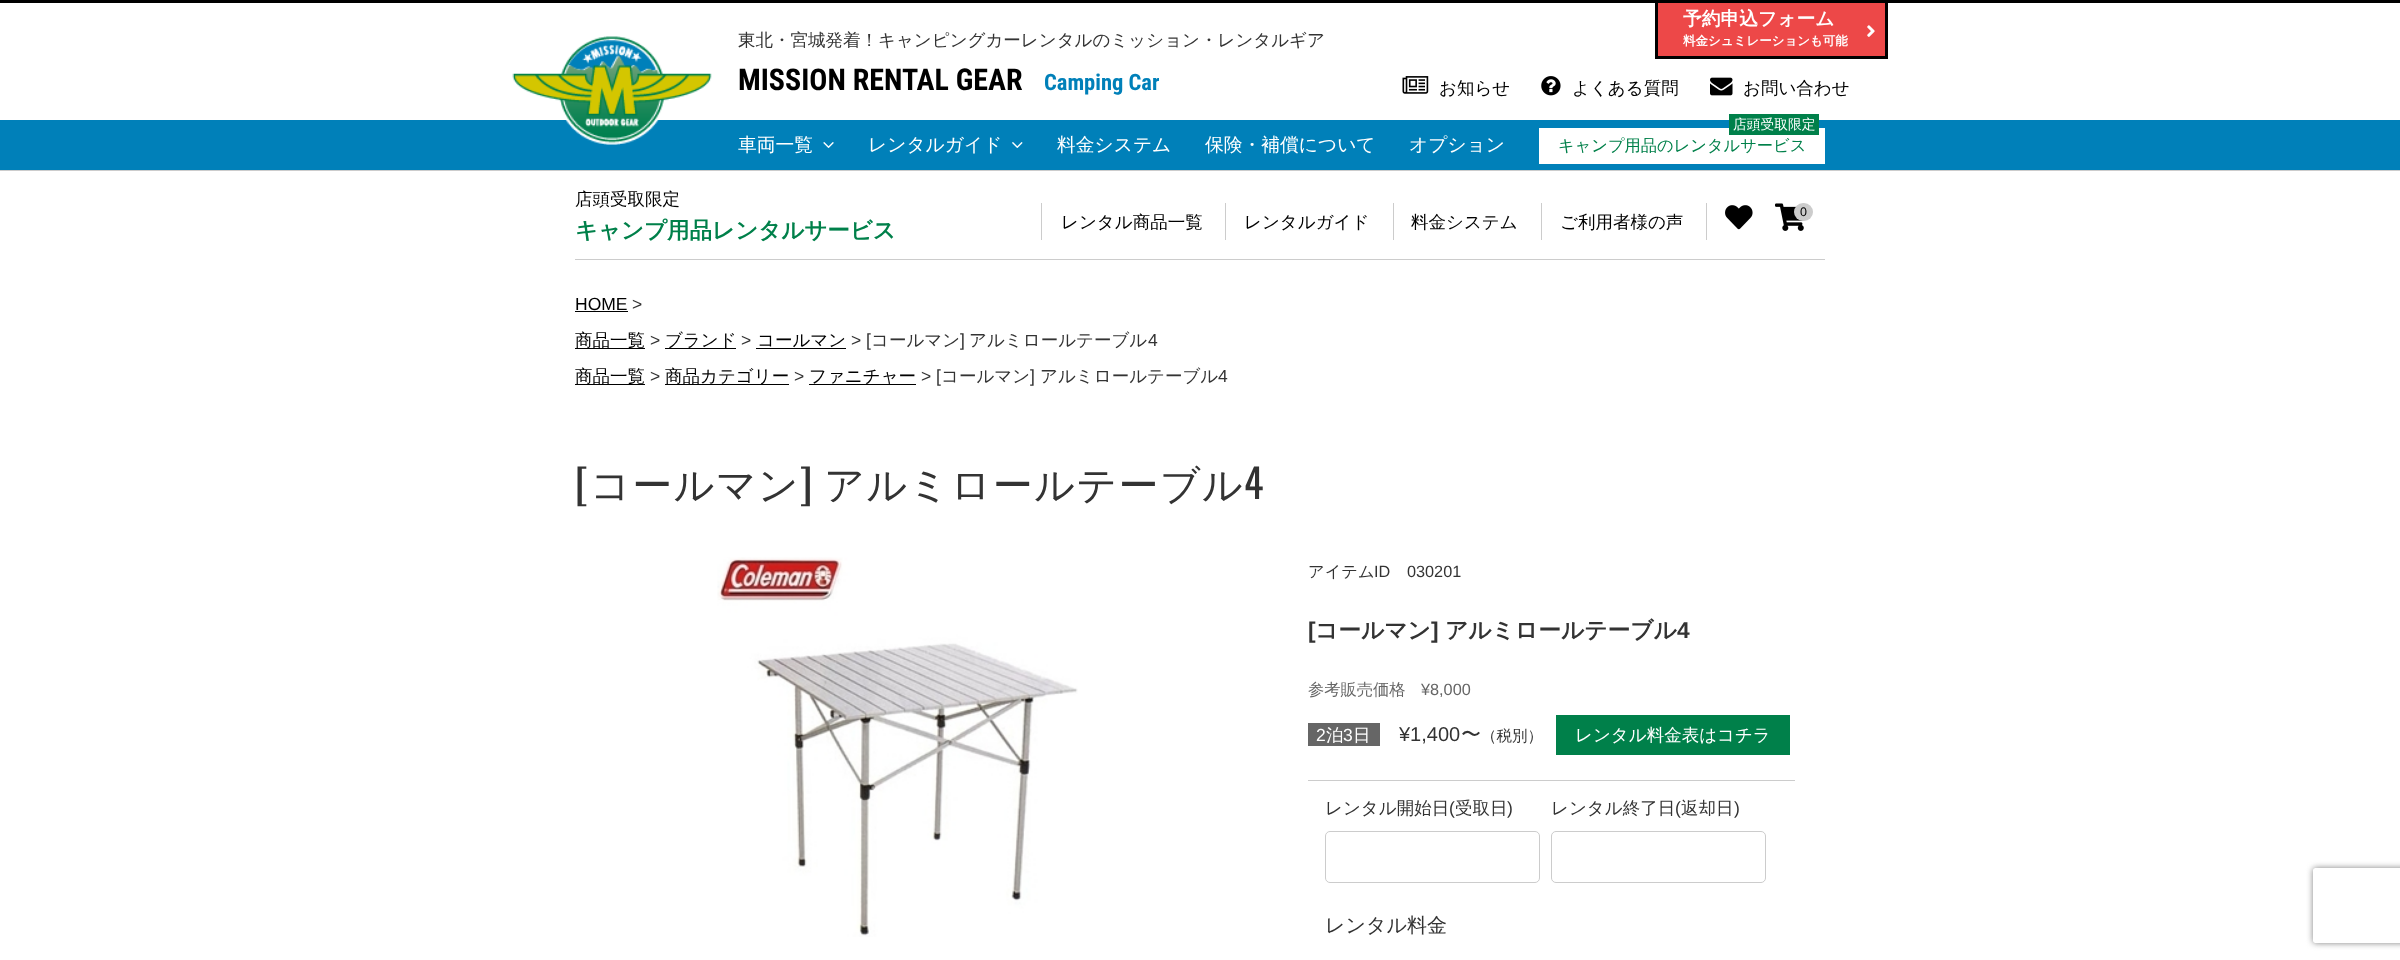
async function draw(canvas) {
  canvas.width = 2400
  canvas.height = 960
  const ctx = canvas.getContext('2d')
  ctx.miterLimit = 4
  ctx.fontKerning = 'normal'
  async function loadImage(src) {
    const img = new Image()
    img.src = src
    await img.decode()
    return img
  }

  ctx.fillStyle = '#fff'
  ctx.fillRect(0, 0, 2400, 960)
  ctx.fillStyle = '#000'
  ctx.fillRect(0, 0, 2400, 3)
  ctx.fillStyle = '#ccc'
  ctx.fillRect(0, 170, 2400, 1)
  ctx.fillStyle = '#0080b9'
  ctx.fillRect(0, 120, 2400, 50)
  ctx.drawImage(await loadImage('image0.png'), 512, 36, 200, 109)
  ctx.font = '500 17.5px WenQuanYi Zen Hei'
  ctx.fillStyle = '#333'
  ctx.fillText('東北・宮城発着！キャンピングカーレンタルのミッション・レンタルギア', 738, 46)
  ctx.font = 'bold 30px Roboto Condensed'
  ctx.fillStyle = '#000'
  ctx.fillText('MISSION RENTAL GEAR', 738, 90)
  ctx.font = 'bold 22.5px Roboto Condensed'
  ctx.fillStyle = '#0080b9'
  ctx.fillText('Camping Car', 1044, 90)
  ctx.fillStyle = '#ed4848'
  ctx.fillRect(1658, 3, 227, 53)
  ctx.fillStyle = '#000'
  ctx.fillRect(1885, 3, 3, 56)
  ctx.fillRect(1655, 56, 233, 3)
  ctx.fillRect(1655, 3, 3, 56)
  ctx.font = 'bold 18.75px WenQuanYi Zen Hei'
  ctx.fillStyle = '#fff'
  ctx.fillText('予約申込フォーム', 1683, 25)
  ctx.font = 'bold 12.5px WenQuanYi Zen Hei'
  ctx.fillText('料金シュミレーションも可能', 1683, 45)
  ctx.drawImage(await loadImage('image1.png'), 1867, 25, 8, 12)
  ctx.drawImage(await loadImage('image2.png'), 1402, 76, 27, 18)
  ctx.font = '500 17.5px WenQuanYi Zen Hei'
  ctx.fillStyle = '#000'
  ctx.fillText('お知らせ', 1439, 94)
  ctx.drawImage(await loadImage('image3.png'), 1541, 76, 20, 20)
  ctx.fillText('よくある質問', 1572, 94)
  ctx.drawImage(await loadImage('image4.png'), 1710, 77, 23, 19)
  ctx.fillText('お問い合わせ', 1743, 94)
  ctx.font = '500 18.75px WenQuanYi Zen Hei'
  ctx.fillStyle = '#fff'
  ctx.fillText('車両一覧', 738, 151)
  ctx.drawImage(await loadImage('image5.png'), 823, 142, 11, 6)
  ctx.fillText('レンタルガイド', 868, 151)
  ctx.drawImage(await loadImage('image6.png'), 1012, 142, 11, 6)
  ctx.fillText('料金システム', 1057, 151)
  ctx.fillText('保険・補償について', 1205, 151)
  ctx.fillText('オプション', 1409, 151)
  ctx.fillRect(1539, 128, 286, 36)
  ctx.fillStyle = '#00804a'
  ctx.fillRect(1729, 114, 90, 21)
  ctx.font = '500 13.75px WenQuanYi Zen Hei'
  ctx.fillStyle = '#fff'
  ctx.fillText('店頭受取限定', 1733, 129)
  ctx.font = '500 16.25px WenQuanYi Zen Hei'
  ctx.fillStyle = '#00804a'
  ctx.fillText('キャンプ用品のレンタルサービス', 1558, 151)
  ctx.fillStyle = '#ccc'
  ctx.fillRect(575, 259, 1250, 1)
  ctx.font = '500 17.5px WenQuanYi Zen Hei'
  ctx.fillStyle = '#000'
  ctx.fillText('店頭受取限定', 575, 205)
  ctx.font = 'bold 22.5px WenQuanYi Zen Hei'
  ctx.fillStyle = '#00804a'
  ctx.fillText('キャンプ用品レンタルサービス', 575, 238)
  ctx.fillStyle = '#ccc'
  ctx.fillRect(1706, 203, 1, 37)
  ctx.drawImage(await loadImage('image7.png'), 1725, 205, 28, 25)
  ctx.drawImage(await loadImage('image8.png'), 1775, 203, 29, 28)
  ctx.beginPath()
  ctx.roundRect(1794, 203, 19, 18, 9)
  ctx.fill()
  ctx.font = '12.5px Liberation Sans'
  ctx.fillStyle = '#000'
  ctx.fillText('0', 1800, 216)
  ctx.fillStyle = '#ccc'
  ctx.fillRect(1041, 203, 1, 37)
  ctx.font = '500 17.5px WenQuanYi Zen Hei'
  ctx.fillStyle = '#000'
  ctx.fillText('レンタル商品一覧', 1061, 228)
  ctx.fillStyle = '#ccc'
  ctx.fillRect(1225, 203, 1, 37)
  ctx.fillStyle = '#000'
  ctx.fillText('レンタルガイド', 1244, 228)
  ctx.fillStyle = '#ccc'
  ctx.fillRect(1393, 203, 1, 37)
  ctx.fillStyle = '#000'
  ctx.fillText('料金システム', 1411, 228)
  ctx.fillStyle = '#ccc'
  ctx.fillRect(1541, 203, 1, 37)
  ctx.fillStyle = '#000'
  ctx.fillText('ご利用者様の声', 1560, 228)
  ctx.font = '17.5px Liberation Sans'
  ctx.fillText('HOME', 575, 310)
  ctx.fillRect(575, 311, 53, 1)
  ctx.fillStyle = '#333'
  ctx.fillText('>', 632, 310)
  ctx.fillStyle = '#000'
  ctx.fillRect(575, 348, 70, 1)
  ctx.font = '500 17.5px WenQuanYi Zen Hei'
  ctx.fillText('商品一覧', 575, 346)
  ctx.font = '17.5px Liberation Sans'
  ctx.fillStyle = '#333'
  ctx.fillText('>', 650, 346)
  ctx.fillStyle = '#000'
  ctx.fillRect(665, 348, 71, 1)
  ctx.font = '500 17.5px WenQuanYi Zen Hei'
  ctx.fillText('ブランド', 665, 346)
  ctx.font = '17.5px Liberation Sans'
  ctx.fillStyle = '#333'
  ctx.fillText('>', 741, 346)
  ctx.font = '500 17.5px WenQuanYi Zen Hei'
  ctx.fillStyle = '#000'
  ctx.fillText('コールマン', 757, 346)
  ctx.fillRect(756, 348, 90, 1)
  ctx.font = '17.5px Liberation Sans'
  ctx.fillStyle = '#333'
  ctx.fillText('> [', 851, 346)
  ctx.font = '500 17.5px WenQuanYi Zen Hei'
  ctx.fillText('コールマン', 871, 346)
  ctx.font = '17.5px Liberation Sans'
  ctx.fillText(']', 960, 346)
  ctx.font = '500 17.5px WenQuanYi Zen Hei'
  ctx.fillText('アルミロールテーブル', 969, 346)
  ctx.font = '17.5px Liberation Sans'
  ctx.fillText('4', 1148, 346)
  ctx.fillStyle = '#000'
  ctx.fillRect(575, 384, 70, 1)
  ctx.font = '500 17.5px WenQuanYi Zen Hei'
  ctx.fillText('商品一覧', 575, 382)
  ctx.font = '17.5px Liberation Sans'
  ctx.fillStyle = '#333'
  ctx.fillText('>', 650, 382)
  ctx.fillStyle = '#000'
  ctx.fillRect(665, 384, 124, 1)
  ctx.font = '500 17.5px WenQuanYi Zen Hei'
  ctx.fillText('商品カテゴリー', 665, 382)
  ctx.font = '17.5px Liberation Sans'
  ctx.fillStyle = '#333'
  ctx.fillText('>', 794, 382)
  ctx.fillStyle = '#000'
  ctx.fillRect(809, 384, 107, 1)
  ctx.font = '500 17.5px WenQuanYi Zen Hei'
  ctx.fillText('ファニチャー', 809, 382)
  ctx.font = '17.5px Liberation Sans'
  ctx.fillStyle = '#333'
  ctx.fillText('> [', 921, 382)
  ctx.font = '500 17.5px WenQuanYi Zen Hei'
  ctx.fillText('コールマン', 941, 382)
  ctx.font = '17.5px Liberation Sans'
  ctx.fillText(']', 1030, 382)
  ctx.font = '500 17.5px WenQuanYi Zen Hei'
  ctx.fillText('アルミロールテーブル', 1040, 382)
  ctx.font = '17.5px Liberation Sans'
  ctx.fillText('4', 1218, 382)
  ctx.letterSpacing = '1.25px'
  ctx.font = '40px Oswald'
  ctx.fillText('[', 575, 499)
  ctx.font = '500 40px WenQuanYi Zen Hei'
  ctx.fillText('コールマン', 590, 499)
  ctx.font = '40px Oswald'
  ctx.fillText(']', 800, 499)
  ctx.font = '500 40px WenQuanYi Zen Hei'
  ctx.fillText('アルミロールテーブル', 824, 499)
  ctx.font = '40px Oswald'
  ctx.fillText('4', 1244, 499)
  ctx.drawImage(await loadImage('image9.png'), 717, 557, 361, 380)
  ctx.letterSpacing = '0px'
  ctx.font = '500 16.25px WenQuanYi Zen Hei'
  ctx.fillText('アイテム', 1308, 577)
  ctx.font = '16.25px Liberation Sans'
  ctx.fillText('ID', 1374, 577)
  ctx.fillText('030201', 1407, 577)
  ctx.font = 'bold 22.75px Liberation Sans'
  ctx.fillText('[', 1308, 638)
  ctx.font = 'bold 22.75px WenQuanYi Zen Hei'
  ctx.fillText('コールマン', 1315, 638)
  ctx.font = 'bold 22.75px Liberation Sans'
  ctx.fillText(']', 1431, 638)
  ctx.font = 'bold 22.75px WenQuanYi Zen Hei'
  ctx.fillText('アルミロールテーブル', 1445, 638)
  ctx.font = 'bold 22.75px Liberation Sans'
  ctx.fillText('4', 1677, 638)
  ctx.font = '500 16.25px WenQuanYi Zen Hei'
  ctx.fillStyle = '#666'
  ctx.fillText('参考販売価格', 1308, 695)
  ctx.font = '16.25px Liberation Sans'
  ctx.fillText('¥8,000', 1421, 695)
  ctx.fillRect(1308, 723, 72, 23)
  ctx.font = '17.5px Liberation Sans'
  ctx.fillStyle = '#fff'
  ctx.fillText('2', 1316, 741)
  ctx.font = '500 17.5px WenQuanYi Zen Hei'
  ctx.fillText('泊', 1326, 741)
  ctx.font = '17.5px Liberation Sans'
  ctx.fillText('3', 1343, 741)
  ctx.font = '500 17.5px WenQuanYi Zen Hei'
  ctx.fillText('日', 1353, 741)
  ctx.font = '20px Liberation Sans'
  ctx.fillStyle = '#333'
  ctx.fillText('¥1,400', 1399, 741)
  ctx.font = '500 20px WenQuanYi Zen Hei'
  ctx.fillText('〜', 1461, 741)
  ctx.font = '500 15.5px WenQuanYi Zen Hei'
  ctx.fillText('（税別）', 1481, 741)
  ctx.fillStyle = '#00804a'
  ctx.fillRect(1556, 715, 234, 40)
  ctx.font = '500 17.5px WenQuanYi Zen Hei'
  ctx.fillStyle = '#fff'
  ctx.fillText('レンタル料金表はコチラ', 1575, 741)
  ctx.fillStyle = '#ccc'
  ctx.fillRect(1308, 780, 487, 1)
  ctx.fillStyle = '#333'
  ctx.fillText('レンタル開始日', 1325, 814)
  ctx.font = '17.5px Liberation Sans'
  ctx.fillText('(', 1449, 814)
  ctx.font = '500 17.5px WenQuanYi Zen Hei'
  ctx.fillText('受取日', 1455, 814)
  ctx.font = '17.5px Liberation Sans'
  ctx.fillText(')', 1507, 814)
  ctx.font = '500 17.5px WenQuanYi Zen Hei'
  ctx.fillText('レンタル終了日', 1551, 814)
  ctx.font = '17.5px Liberation Sans'
  ctx.fillText('(', 1675, 814)
  ctx.font = '500 17.5px WenQuanYi Zen Hei'
  ctx.fillText('返却日', 1681, 814)
  ctx.font = '17.5px Liberation Sans'
  ctx.fillText(')', 1734, 814)
  ctx.beginPath()
  ctx.roundRect(1325.5, 831.5, 214, 51, 4.5)
  ctx.strokeStyle = '#ccc'
  ctx.stroke()
  ctx.beginPath()
  ctx.roundRect(1551.5, 831.5, 214, 51, 4.5)
  ctx.stroke()
  ctx.font = '500 20px WenQuanYi Zen Hei'
  ctx.fillText('レンタル料金', 1325, 932)
  ctx.save()
  ctx.beginPath()
  ctx.moveTo(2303, 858)
  ctx.lineTo(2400, 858)
  ctx.lineTo(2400, 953)
  ctx.lineTo(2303, 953)
  ctx.closePath()
  ctx.moveTo(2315.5, 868)
  ctx.lineTo(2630.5, 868)
  ctx.bezierCurveTo(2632, 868, 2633, 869, 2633, 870.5)
  ctx.lineTo(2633, 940.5)
  ctx.bezierCurveTo(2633, 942, 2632, 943, 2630.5, 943)
  ctx.lineTo(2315.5, 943)
  ctx.bezierCurveTo(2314, 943, 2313, 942, 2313, 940.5)
  ctx.lineTo(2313, 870.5)
  ctx.bezierCurveTo(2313, 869, 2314, 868, 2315.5, 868)
  ctx.closePath()
  ctx.clip('evenodd')
  ctx.fillStyle = '#808080'
  ctx.filter = 'blur(3px)'
  ctx.beginPath()
  ctx.roundRect(2313, 868, 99, 75, 2.5)
  ctx.fill()
  ctx.filter = 'none'
  ctx.restore()
}

draw(document.querySelector('canvas'))
